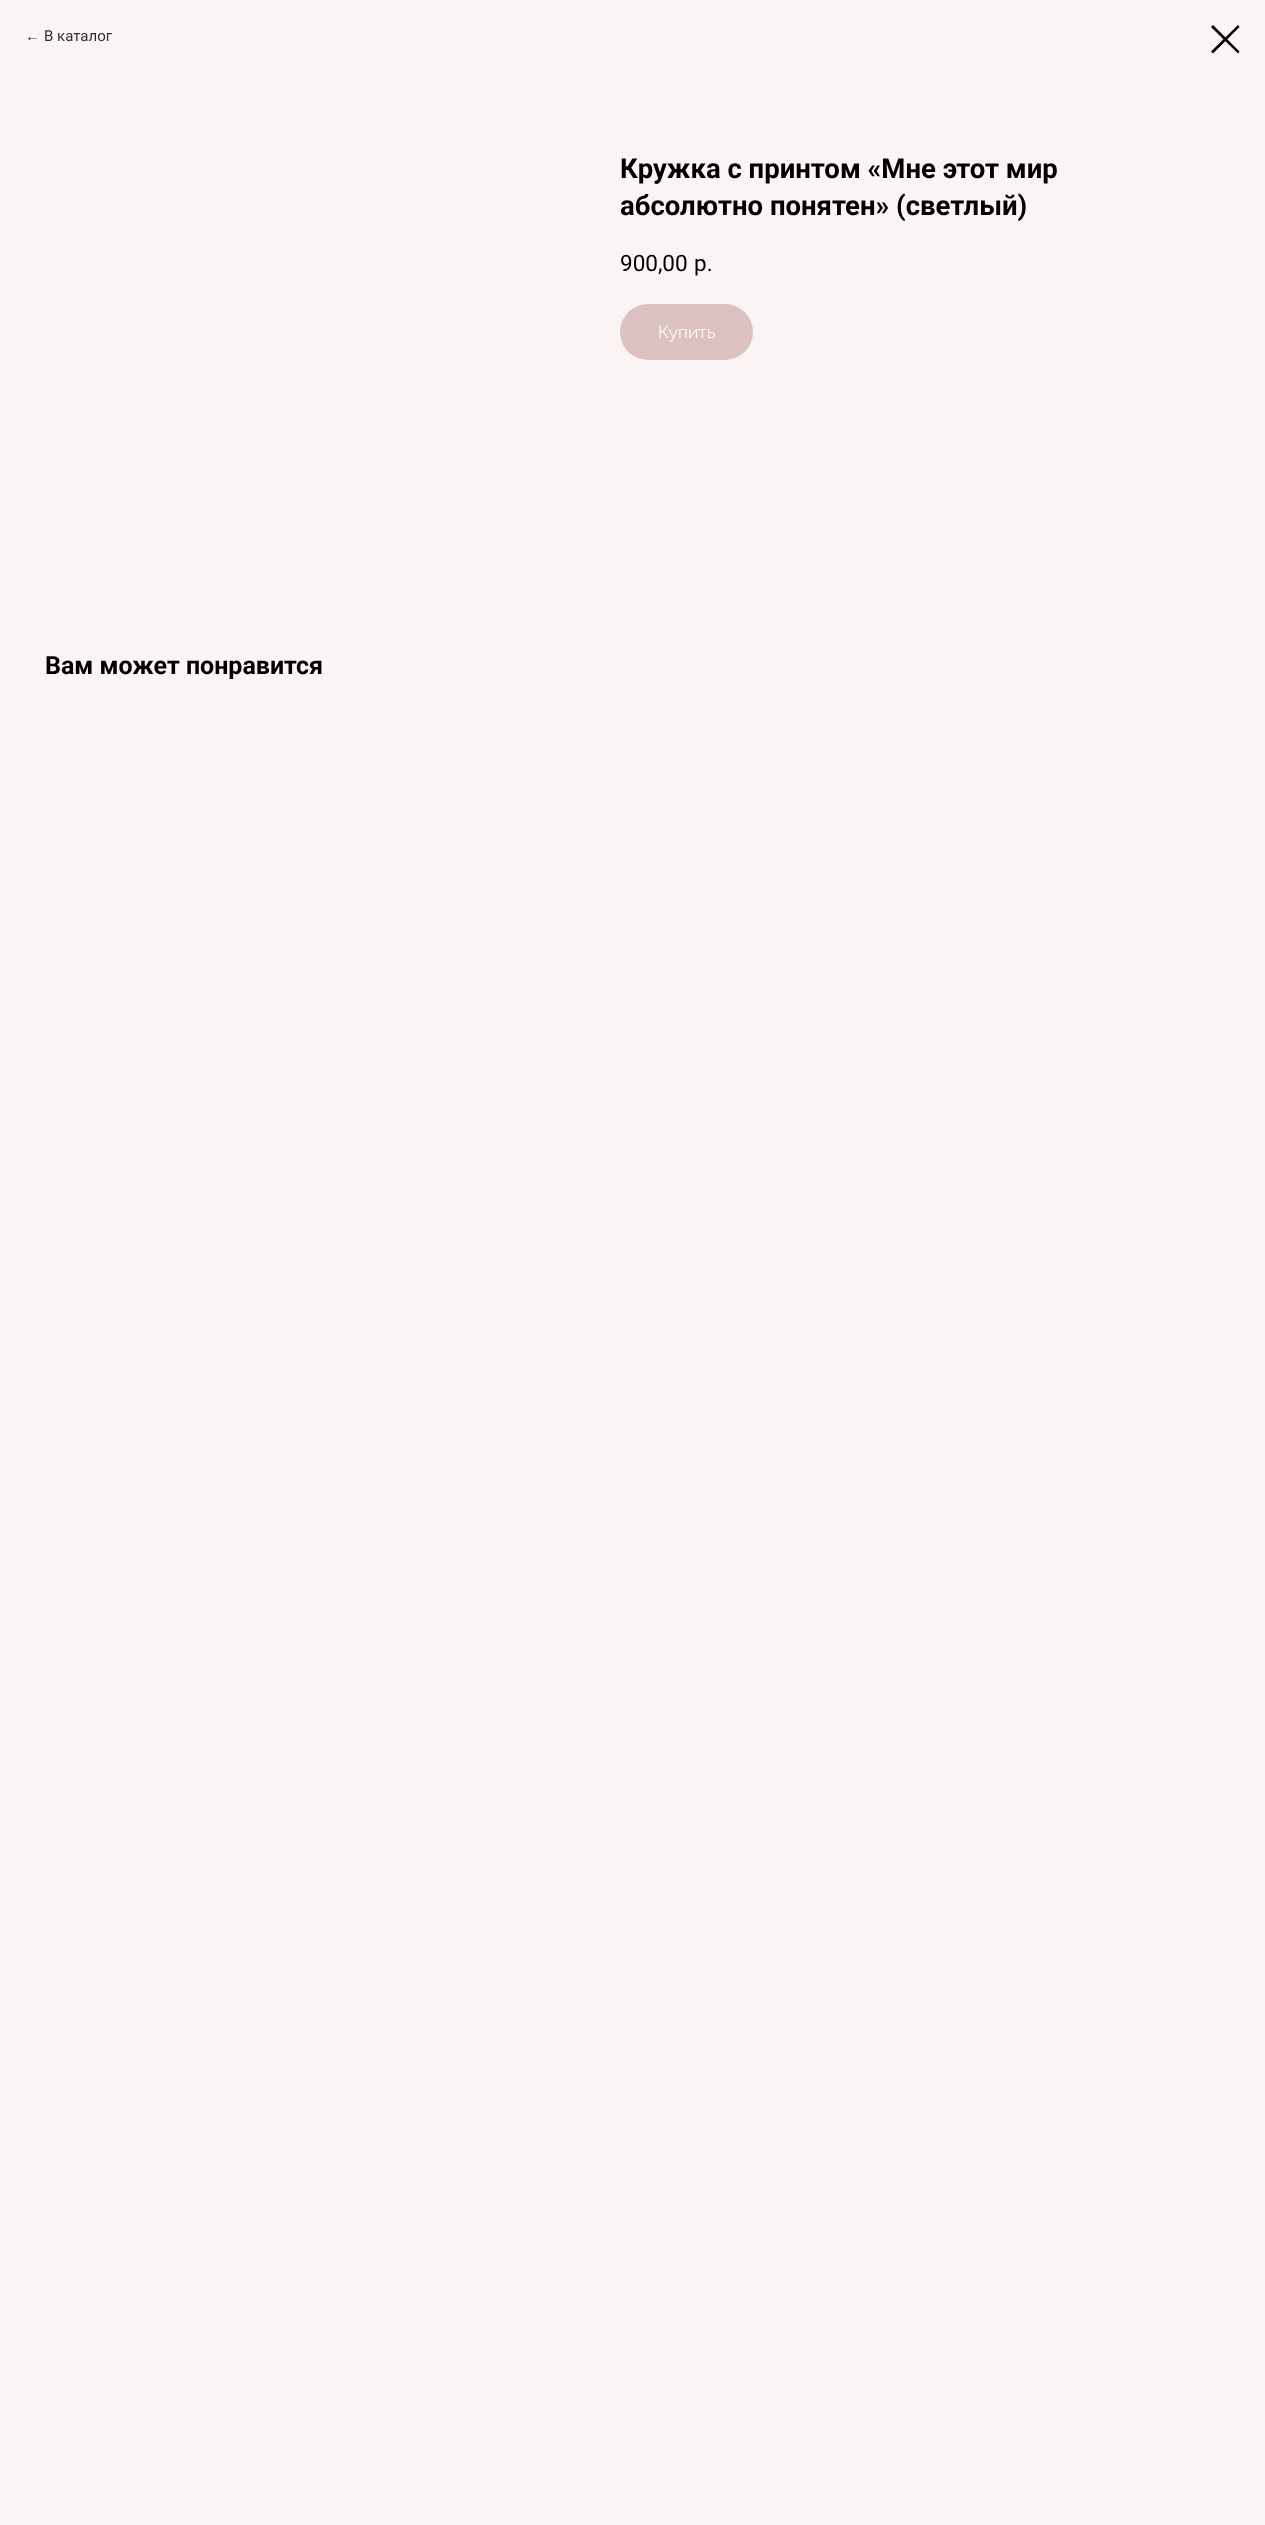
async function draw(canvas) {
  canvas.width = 1265
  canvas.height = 2525
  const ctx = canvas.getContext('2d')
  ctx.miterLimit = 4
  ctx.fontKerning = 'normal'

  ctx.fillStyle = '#fbf4f4'
  ctx.fillRect(0, 0, 1265, 2525)
  ctx.font = '15px Liberation Sans'
  ctx.fillStyle = '#323131'
  ctx.fillText('←', 25, 41)
  ctx.font = '15px Roboto'
  ctx.fillText('В каталог', 44, 41)
  ctx.fillStyle = '#000'
  ctx.beginPath()
  ctx.moveTo(1211, 27)
  ctx.lineTo(1213, 25)
  ctx.lineTo(1239.5, 51.5)
  ctx.lineTo(1238, 53.5)
  ctx.closePath()
  ctx.fill('evenodd')
  ctx.beginPath()
  ctx.moveTo(1238, 25)
  ctx.lineTo(1239.5, 27)
  ctx.lineTo(1213, 53.5)
  ctx.lineTo(1211, 51.5)
  ctx.closePath()
  ctx.fill('evenodd')
  ctx.font = 'bold 27.5px Roboto'
  ctx.fillText('Кружка с принтом «Мне этот мир', 620, 178)
  ctx.fillText('абсолютно понятен» (светлый)', 620, 215)
  ctx.font = '22.5px Roboto'
  ctx.fillText('900,00', 620, 271)
  ctx.fillText('р.', 694, 271)
  ctx.fillStyle = '#dbc2c1'
  ctx.beginPath()
  ctx.roundRect(620, 304, 133, 56, 28)
  ctx.fill()
  ctx.font = '100 17.5px Raleway'
  ctx.fillStyle = '#fcf8f8'
  ctx.fillText('Купить', 658, 338)
  ctx.font = 'bold 25px Roboto'
  ctx.fillStyle = '#000'
  ctx.fillText('Вам может понравится', 45, 674)
}

draw(document.querySelector('canvas'))
